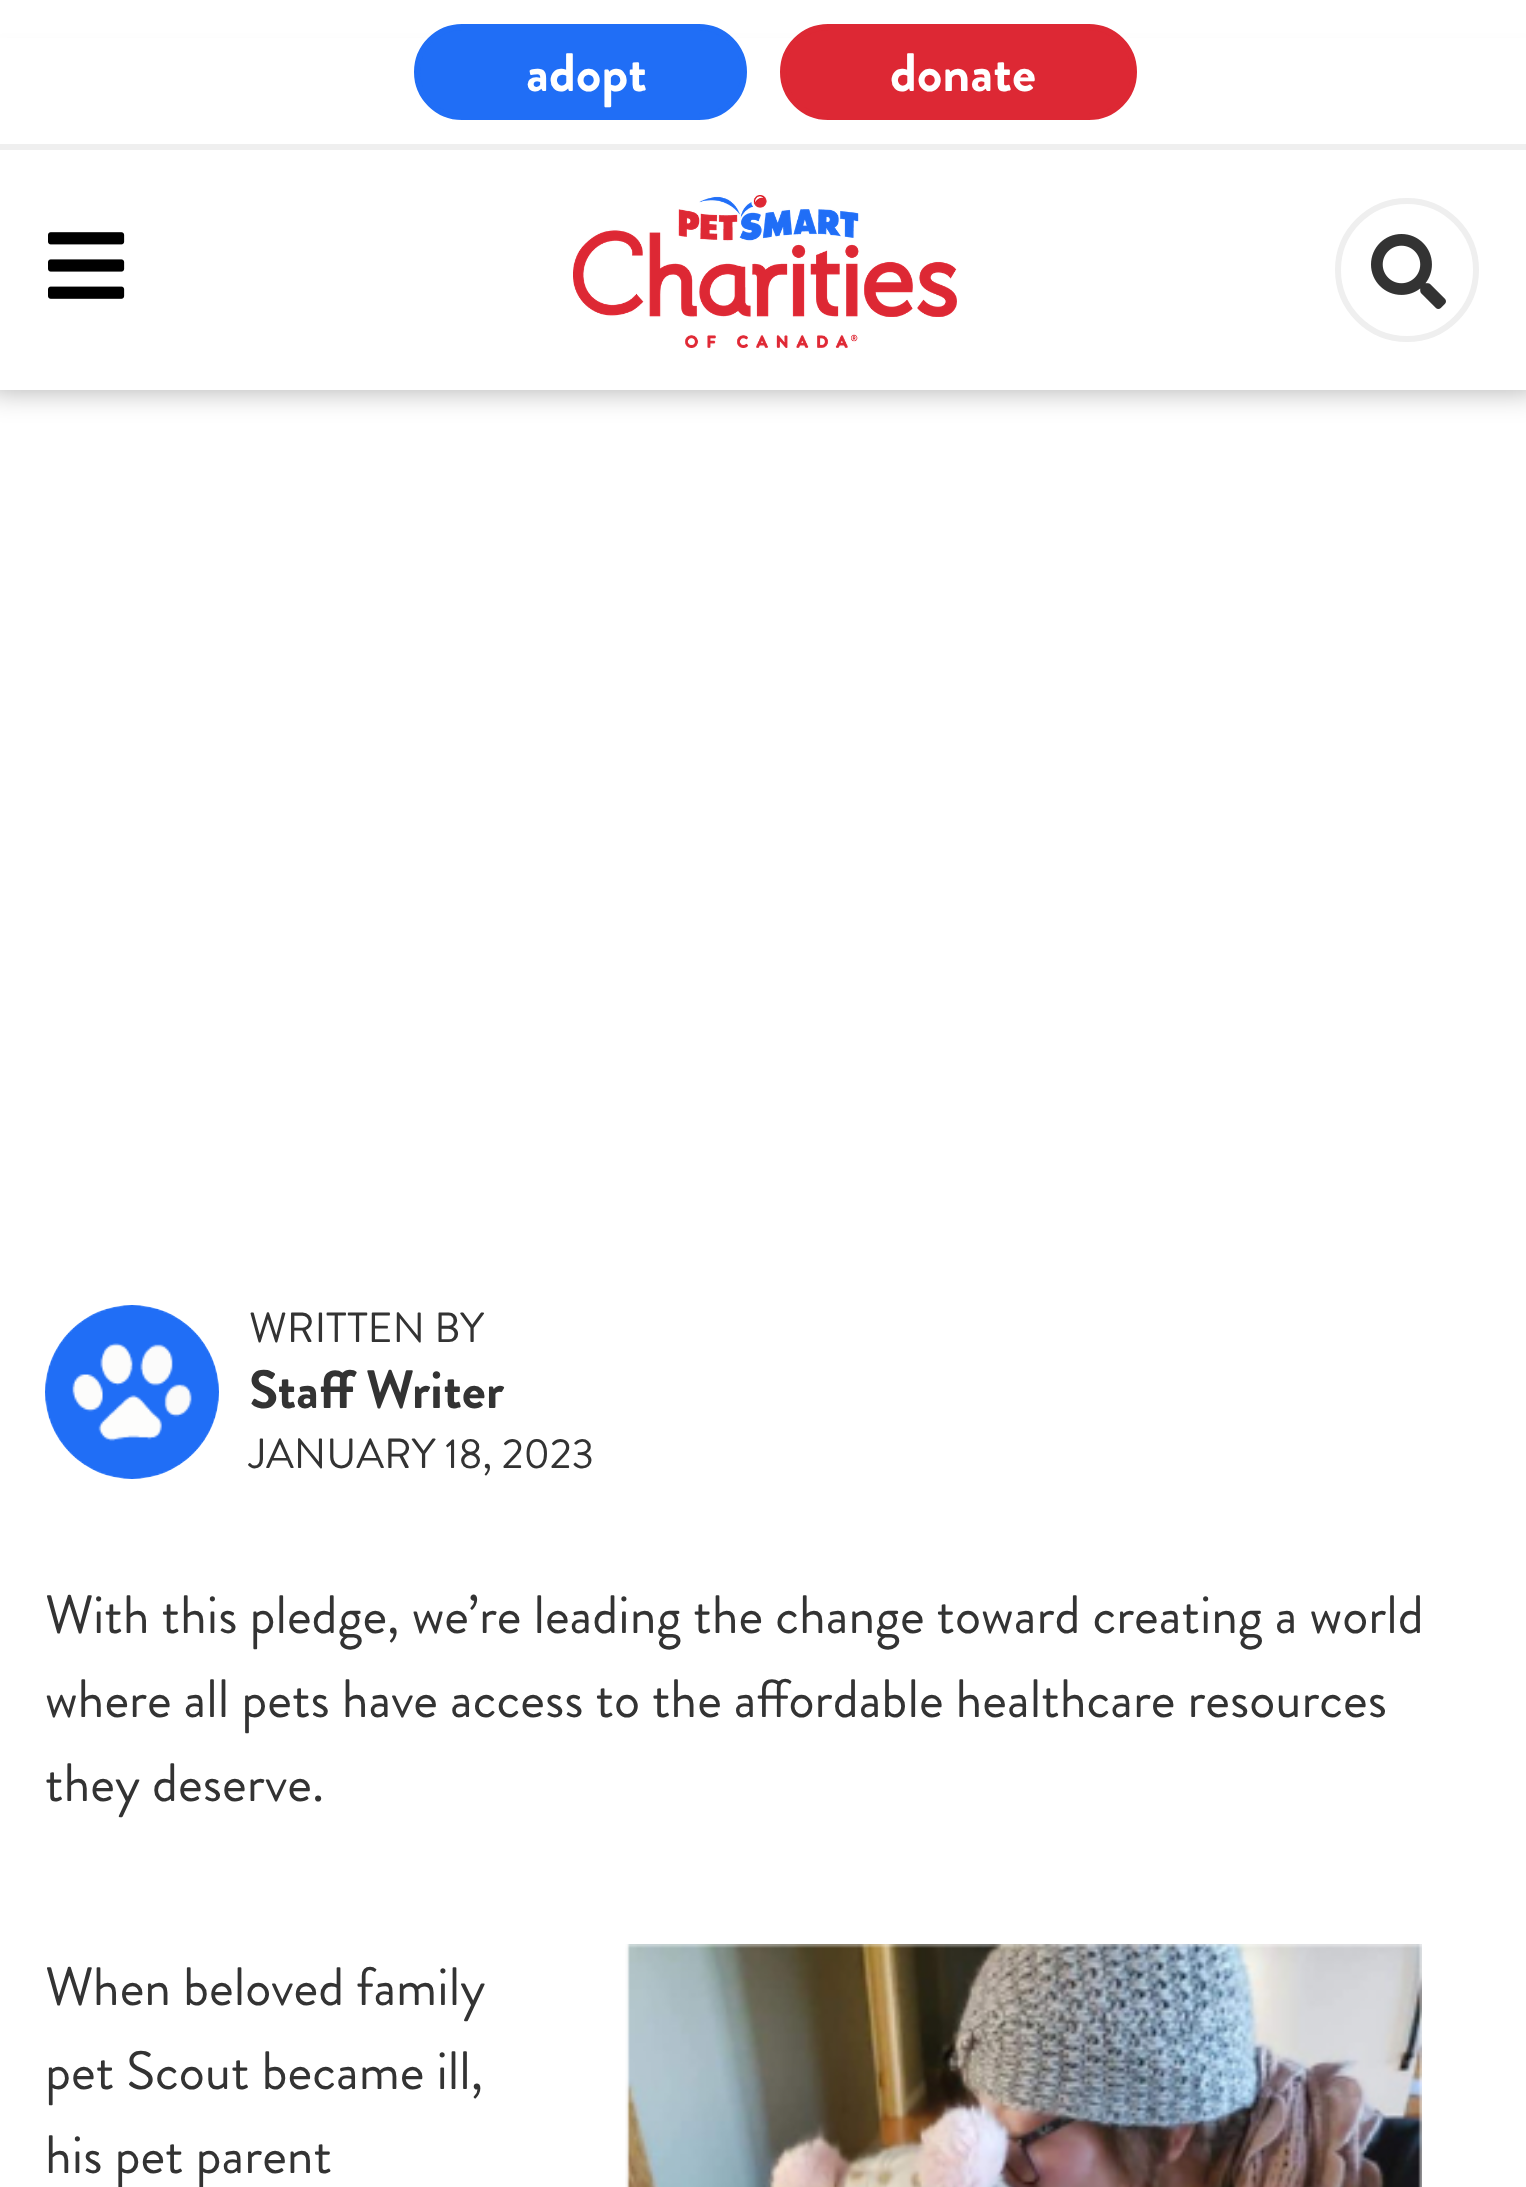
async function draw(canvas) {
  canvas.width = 1526
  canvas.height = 2187
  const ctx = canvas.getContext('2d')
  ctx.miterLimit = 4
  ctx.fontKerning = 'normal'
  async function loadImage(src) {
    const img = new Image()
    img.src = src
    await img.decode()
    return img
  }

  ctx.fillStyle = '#fff'
  ctx.fillRect(0, 0, 1526, 2187)
  ctx.fillStyle = '#00000052'
  ctx.filter = 'blur(15px)'
  ctx.beginPath()
  ctx.rect(-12, 66, 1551, 324)
  ctx.fill()
  ctx.filter = 'none'
  ctx.fillStyle = '#fff'
  ctx.fillRect(0, 38, 1526, 352)
  ctx.fillStyle = '#efefef'
  ctx.fillRect(0, 144, 1526, 6)
  ctx.fillStyle = '#206ef6'
  ctx.beginPath()
  ctx.roundRect(417, 27, 327, 90, 45)
  ctx.fill()
  ctx.strokeStyle = '#206ef6'
  ctx.lineWidth = 6
  ctx.stroke()
  ctx.font = 'bold 54px Brandon Grotesque'
  ctx.fillStyle = '#fff'
  ctx.fillText('adopt', 526, 91)
  ctx.fillStyle = '#dd2834'
  ctx.beginPath()
  ctx.roundRect(783, 27, 351, 90, 45)
  ctx.fill()
  ctx.strokeStyle = '#dd2834'
  ctx.stroke()
  ctx.fillStyle = '#fff'
  ctx.fillText('donate', 890, 91)
  ctx.drawImage(await loadImage('image0.png'), 48, 232, 77, 67)
  ctx.drawImage(await loadImage('image1.png'), 573, 195, 384, 153)
  ctx.beginPath()
  ctx.arc(1407, 270, 69, 0, 2 * Math.PI)
  ctx.strokeStyle = '#efefef'
  ctx.stroke()
  ctx.drawImage(await loadImage('image2.png'), 1371, 234, 75, 75)
  ctx.drawImage(await loadImage('image3.png'), 45, 1305, 174, 174)
  ctx.font = '42px Brandon Grotesque'
  ctx.fillStyle = '#333'
  ctx.fillText('WRITTEN BY', 249, 1342)
  ctx.font = 'bold 54px Brandon Grotesque'
  ctx.fillText('Staff Writer', 249, 1408)
  ctx.font = '42px Brandon Grotesque'
  ctx.fillText('JANUARY 18, 2023', 249, 1468)
  ctx.font = '54px Brandon Grotesque'
  ctx.fillText('With this pledge, we’re leading the change toward creating a world', 45, 1633)
  ctx.fillText('where all pets have access to the affordable healthcare resources', 45, 1717)
  ctx.fillText('they deserve.', 45, 1801)
  ctx.fillText('When beloved family', 45, 2005)
  ctx.drawImage(await loadImage('image4.png'), 625, 1944, 797, 243)
  ctx.fillText('pet Scout became ill,', 45, 2089)
  ctx.fillText('his pet parent', 45, 2173)
}

draw(document.querySelector('canvas'))
